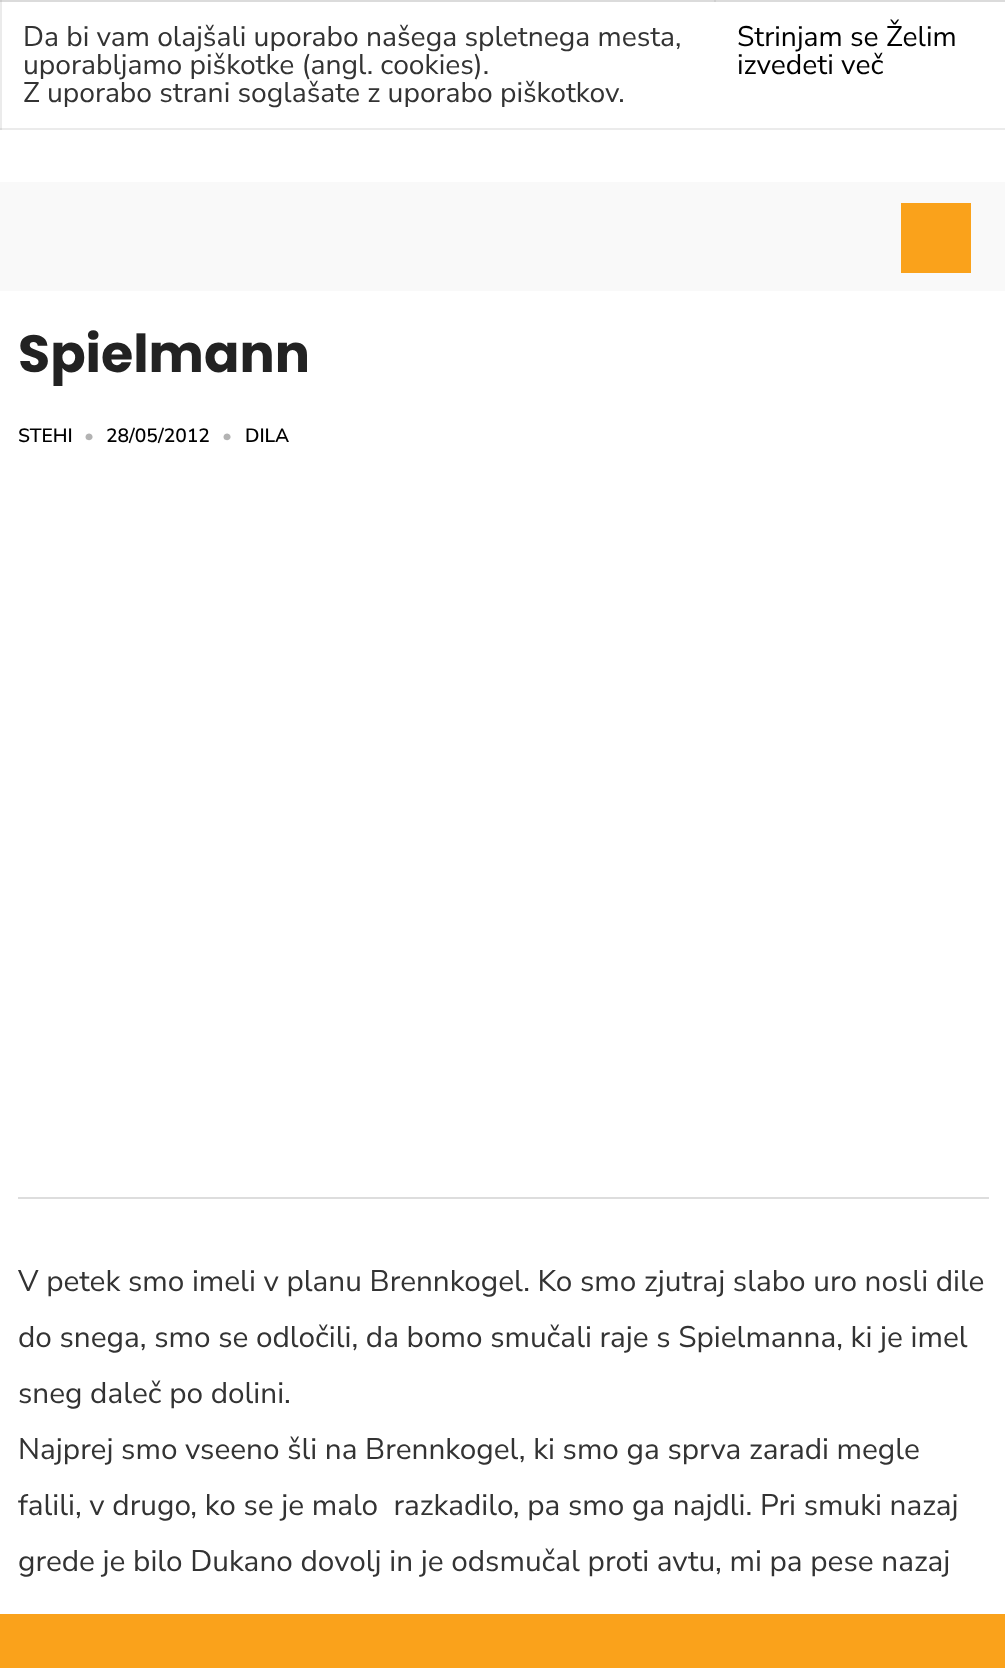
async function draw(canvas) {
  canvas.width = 1005
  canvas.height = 1668
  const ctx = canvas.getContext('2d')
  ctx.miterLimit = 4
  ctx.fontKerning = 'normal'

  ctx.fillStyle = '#fff'
  ctx.fillRect(0, 0, 1005, 1668)
  ctx.fillStyle = '#ebebeb'
  ctx.fillRect(0, 0, 2, 130)
  ctx.fillStyle = '#dbdbdb'
  ctx.fillRect(0, 0, 1005, 2)
  ctx.fillStyle = '#cecece'
  ctx.fillRect(0, 0, 2, 2)
  ctx.fillStyle = '#ebebeb'
  ctx.fillRect(0, 128, 1005, 2)
  ctx.fillStyle = '#dbdbdb'
  ctx.fillRect(0, 128, 2, 2)
  ctx.font = '28.25px Nunito Sans'
  ctx.fillStyle = '#333'
  ctx.fillText('Da bi vam olajšali uporabo našega spletnega mesta,', 23, 46)
  ctx.fillText('uporabljamo piškotke (angl. cookies).', 23, 74)
  ctx.fillText('Z uporabo strani soglašate z uporabo piškotkov.', 23, 102)
  ctx.fillStyle = '#cecece'
  ctx.fillRect(714, 0, 2, 2)
  ctx.fillStyle = '#000'
  ctx.fillText('Strinjam se Želim', 737, 46)
  ctx.fillText('izvedeti več', 737, 74)
  ctx.fillStyle = '#f9f9f9'
  ctx.fillRect(0, 182, 1005, 109)
  ctx.fillStyle = '#faa21b'
  ctx.fillRect(901, 203, 70, 70)
  ctx.font = 'bold 52.25px Poppins'
  ctx.fillStyle = '#222'
  ctx.fillText('Spielmann', 18, 372)
  ctx.font = '600 19.25px Nunito Sans'
  ctx.fillStyle = '#000'
  ctx.fillText('STEHI', 18, 442)
  ctx.fillStyle = '#b3b3b3'
  ctx.fillText('•', 84, 442)
  ctx.fillStyle = '#000'
  ctx.fillText('28/05/2012', 106, 442)
  ctx.fillStyle = '#b3b3b3'
  ctx.fillText('•', 222, 442)
  ctx.fillStyle = '#000'
  ctx.fillText('DILA', 245, 442)
  ctx.fillStyle = '#ddd'
  ctx.fillRect(18, 1197, 971, 2)
  ctx.font = '29.75px Nunito Sans'
  ctx.fillStyle = '#333'
  ctx.fillText('V petek smo imeli v planu Brennkogel. Ko smo zjutraj slabo uro nosli dile', 18, 1291)
  ctx.fillText('do snega, smo se odločili, da bomo smučali raje s Spielmanna, ki je imel', 18, 1347)
  ctx.fillText('sneg daleč po dolini.', 18, 1403)
  ctx.fillText('Najprej smo vseeno šli na Brennkogel, ki smo ga sprva zaradi megle', 18, 1459)
  ctx.fillText('falili, v drugo, ko se je malo  razkadilo, pa smo ga najdli. Pri smuki nazaj', 18, 1515)
  ctx.fillText('grede je bilo Dukano dovolj in je odsmučal proti avtu, mi pa pese nazaj', 18, 1571)
  ctx.fillStyle = '#faa21b'
  ctx.fillRect(0, 1614, 1005, 54)
}

draw(document.querySelector('canvas'))
